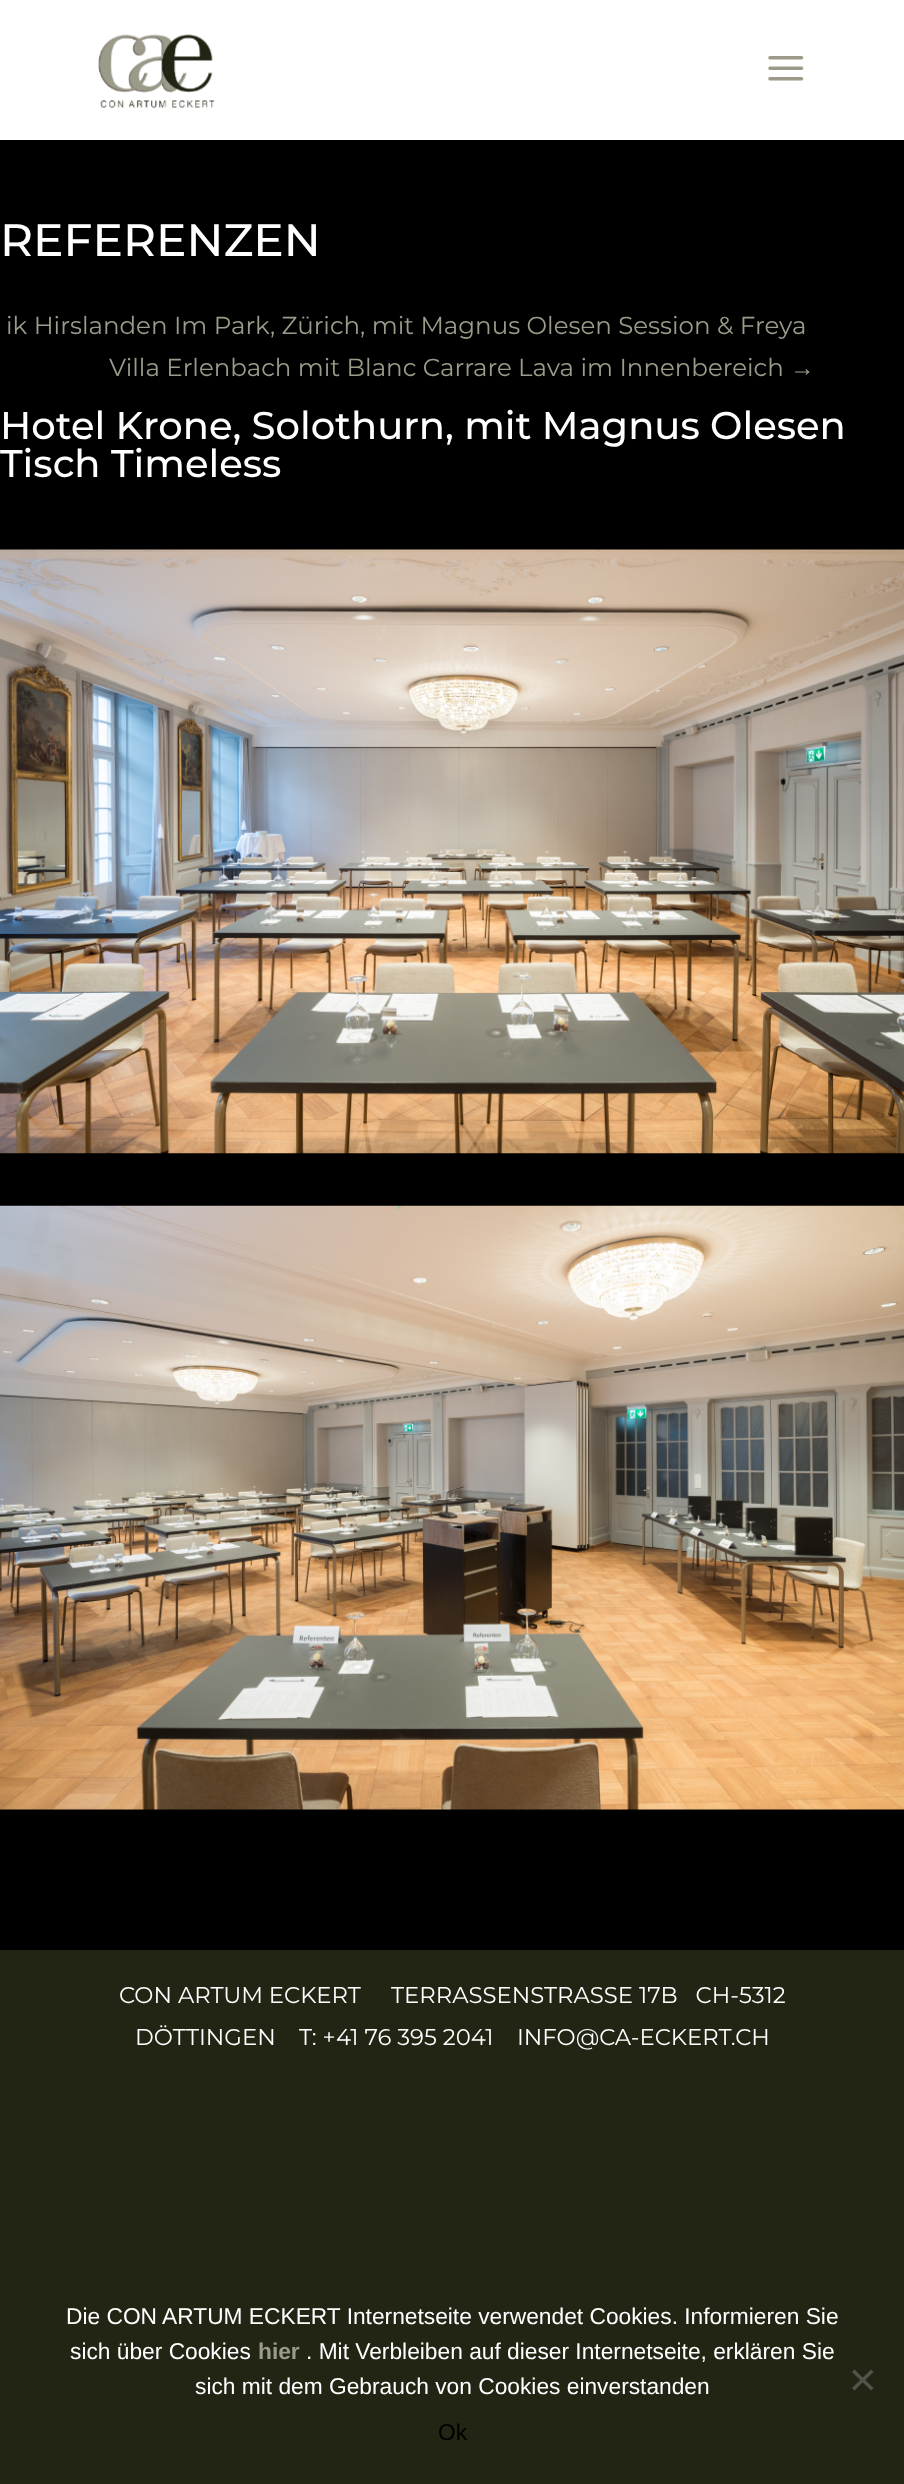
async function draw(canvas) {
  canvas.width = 904
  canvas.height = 2484
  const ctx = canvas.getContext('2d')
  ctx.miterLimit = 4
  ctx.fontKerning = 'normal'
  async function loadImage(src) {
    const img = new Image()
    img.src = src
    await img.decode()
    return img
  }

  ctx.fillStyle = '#222514'
  ctx.fillRect(0, 0, 904, 2484)
  ctx.fillStyle = '#fff'
  ctx.fillRect(0, 0, 904, 140)
  ctx.drawImage(await loadImage('image0.png'), 98, 34, 117, 75)
  ctx.drawImage(await loadImage('image1.png'), 768, 56, 36, 25)
  ctx.fillStyle = '#000'
  ctx.fillRect(0, 140, 904, 1810)
  ctx.font = '100 45.5px "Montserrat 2"'
  ctx.fillStyle = '#fff'
  ctx.fillText('REFERENZEN', 0, 256)
  ctx.font = '100 24.5px Montserrat'
  ctx.fillStyle = '#9c9b8a'
  ctx.fillText('ik Hirslanden Im Park, Zürich, mit Magnus Olesen Session & Freya', 6, 334)
  ctx.fillText('Villa Erlenbach mit Blanc Carrare Lava im Innenbereich', 109, 376)
  ctx.font = '24.5px Liberation Sans'
  ctx.fillText('→', 790, 376)
  ctx.font = '100 38.5px "Montserrat 2"'
  ctx.fillStyle = '#fff'
  ctx.fillText('Hotel Krone, Solothurn, mit Magnus Olesen', 0, 439)
  ctx.fillText('Tisch Timeless', 0, 477)
  ctx.drawImage(await loadImage('image2.png'), 0, 549, 904, 605)
  ctx.drawImage(await loadImage('image3.png'), 0, 1205, 904, 605)
  ctx.font = '100 22.75px Montserrat'
  ctx.fillText('CON ARTUM ECKERT', 119, 2003)
  ctx.fillText('TERRASSENSTRASSE 17B   CH-5312', 391, 2003)
  ctx.fillText('DÖTTINGEN', 135, 2045)
  ctx.fillText('T: +41 76 395 2041', 299, 2045)
  ctx.fillText('INFO@CA-ECKERT.CH', 517, 2045)
  ctx.font = '22.75px Liberation Sans'
  ctx.fillText('Die CON ARTUM ECKERT Internetseite verwendet Cookies. Informieren Sie', 66, 2324)
  ctx.fillText('sich über Cookies', 70, 2359)
  ctx.font = 'bold 22.75px Liberation Sans'
  ctx.fillStyle = '#9c9b8a'
  ctx.fillText('hier', 258, 2359)
  ctx.font = '22.75px Liberation Sans'
  ctx.fillStyle = '#fff'
  ctx.fillText('. Mit Verbleiben auf dieser Internetseite, erklären Sie', 306, 2359)
  ctx.fillText('sich mit dem Gebrauch von Cookies einverstanden', 195, 2394)
  ctx.fillStyle = '#51534a'
  ctx.beginPath()
  ctx.moveTo(871, 2369.5)
  ctx.lineTo(873.5, 2372)
  ctx.lineTo(854.5, 2390.5)
  ctx.lineTo(852, 2388)
  ctx.closePath()
  ctx.fill()
  ctx.beginPath()
  ctx.moveTo(852, 2372)
  ctx.lineTo(854.5, 2369.5)
  ctx.lineTo(873.5, 2388)
  ctx.lineTo(871, 2390.5)
  ctx.closePath()
  ctx.fill()
  ctx.fillStyle = '#010101'
  ctx.fillText('Ok', 438, 2440)
}

draw(document.querySelector('canvas'))
